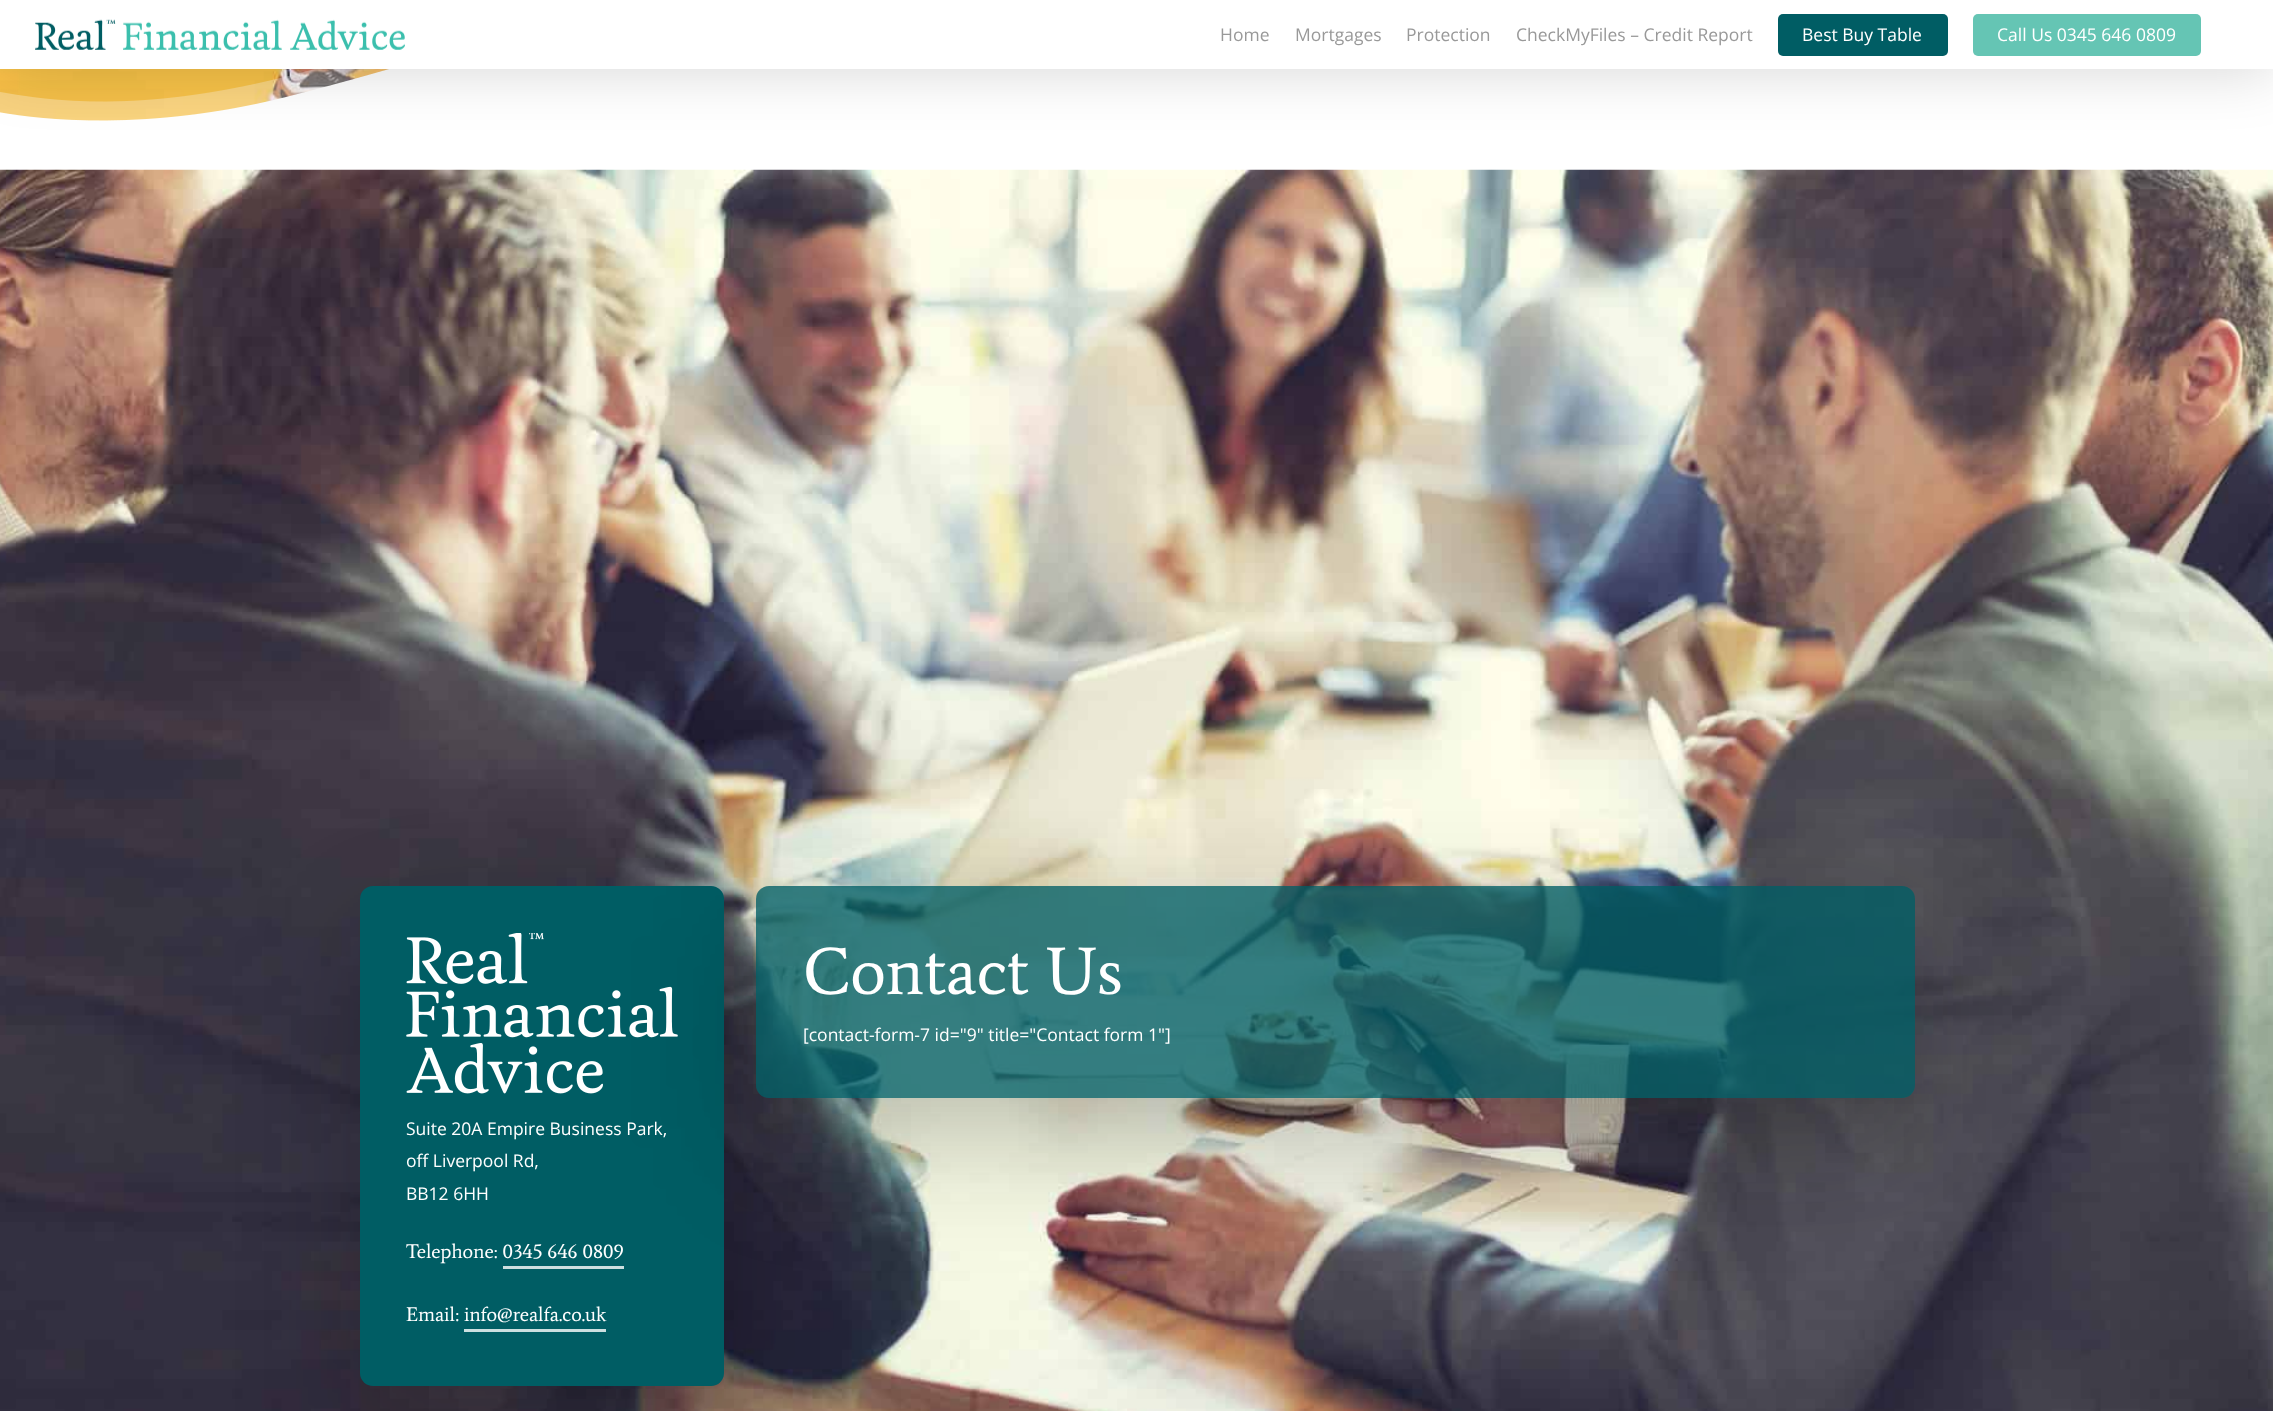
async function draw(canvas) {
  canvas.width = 2273
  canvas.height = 1411
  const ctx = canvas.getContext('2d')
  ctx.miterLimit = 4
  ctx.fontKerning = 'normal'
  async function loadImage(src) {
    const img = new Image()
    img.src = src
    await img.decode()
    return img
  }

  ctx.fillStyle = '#fff'
  ctx.fillRect(0, 0, 2273, 1411)
  ctx.drawImage(await loadImage('image1.png'), 0, 69, 389, 52)
  ctx.drawImage(await loadImage('image2.png'), 0, 69, 2273, 76)
  ctx.fillStyle = '#00000026'
  ctx.filter = 'blur(28px)'
  ctx.beginPath()
  ctx.rect(0, -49, 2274, 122)
  ctx.fill()
  ctx.filter = 'none'
  ctx.fillStyle = '#fff'
  ctx.fillRect(0, 0, 2273, 69)
  ctx.drawImage(await loadImage('image0.png'), 35, 19, 370, 31)
  ctx.font = '17.5px Open Sans'
  ctx.fillStyle = '#999'
  ctx.fillText('Home', 1220, 41)
  ctx.fillText('Mortgages', 1295, 41)
  ctx.fillText('Protection', 1406, 41)
  ctx.fillText('CheckMyFiles – Credit Report', 1516, 41)
  ctx.fillStyle = '#005d64'
  ctx.beginPath()
  ctx.roundRect(1778, 14, 170, 42, 5)
  ctx.fill()
  ctx.fillStyle = '#fff'
  ctx.fillText('Best Buy Table', 1802, 41)
  ctx.fillStyle = '#65c5b4'
  ctx.beginPath()
  ctx.roundRect(1973, 14, 228, 42, 5)
  ctx.fill()
  ctx.fillStyle = '#fff'
  ctx.fillText('Call Us 0345 646 0809', 1997, 41)
  ctx.drawImage(await loadImage('image3.png'), 0, 169, 2273, 1242)
  ctx.fillStyle = '#0000001a'
  ctx.filter = 'blur(50px)'
  ctx.beginPath()
  ctx.roundRect(360, 918, 364, 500, 13)
  ctx.fill()
  ctx.filter = 'none'
  ctx.fillStyle = '#00000026'
  ctx.filter = 'blur(62.5px)'
  ctx.beginPath()
  ctx.roundRect(360, 936, 364, 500, 13)
  ctx.fill()
  ctx.filter = 'none'
  ctx.fillStyle = '#005d64'
  ctx.beginPath()
  ctx.roundRect(360, 886, 364, 500, 13)
  ctx.fill()
  ctx.save()
  ctx.beginPath()
  ctx.moveTo(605, 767)
  ctx.lineTo(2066, 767)
  ctx.lineTo(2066, 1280)
  ctx.lineTo(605, 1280)
  ctx.closePath()
  ctx.moveTo(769, 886)
  ctx.lineTo(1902, 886)
  ctx.bezierCurveTo(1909, 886, 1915, 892, 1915, 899)
  ctx.lineTo(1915, 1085)
  ctx.bezierCurveTo(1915, 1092, 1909, 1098, 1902, 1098)
  ctx.lineTo(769, 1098)
  ctx.bezierCurveTo(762, 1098, 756, 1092, 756, 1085)
  ctx.lineTo(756, 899)
  ctx.bezierCurveTo(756, 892, 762, 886, 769, 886)
  ctx.closePath()
  ctx.clip('evenodd')
  ctx.fillStyle = '#0000001a'
  ctx.filter = 'blur(50px)'
  ctx.beginPath()
  ctx.roundRect(756, 918, 1159, 211, 13)
  ctx.fill()
  ctx.filter = 'none'
  ctx.restore()
  ctx.save()
  ctx.beginPath()
  ctx.moveTo(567, 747)
  ctx.lineTo(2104, 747)
  ctx.lineTo(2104, 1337)
  ctx.lineTo(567, 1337)
  ctx.closePath()
  ctx.moveTo(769, 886)
  ctx.lineTo(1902, 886)
  ctx.bezierCurveTo(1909, 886, 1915, 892, 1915, 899)
  ctx.lineTo(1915, 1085)
  ctx.bezierCurveTo(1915, 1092, 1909, 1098, 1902, 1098)
  ctx.lineTo(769, 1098)
  ctx.bezierCurveTo(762, 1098, 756, 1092, 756, 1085)
  ctx.lineTo(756, 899)
  ctx.bezierCurveTo(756, 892, 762, 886, 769, 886)
  ctx.closePath()
  ctx.clip('evenodd')
  ctx.fillStyle = '#00000026'
  ctx.filter = 'blur(62.5px)'
  ctx.beginPath()
  ctx.roundRect(756, 936, 1159, 212, 13)
  ctx.fill()
  ctx.filter = 'none'
  ctx.restore()
  ctx.fillStyle = '#005d64c9'
  ctx.beginPath()
  ctx.roundRect(756, 886, 1159, 212, 13)
  ctx.fill()
  ctx.font = '67.5px Average'
  ctx.fillStyle = '#fff'
  ctx.fillText('Contact Us', 803, 994)
  ctx.font = '17.5px Open Sans'
  ctx.fillText('[contact-form-7 id="9" title="Contact form 1"]', 803, 1041)
  ctx.drawImage(await loadImage('image4.png'), 406, 933, 272, 161)
  ctx.fillText('Suite 20A Empire Business Park,', 406, 1135)
  ctx.fillText('off Liverpool Rd,', 406, 1167)
  ctx.fillText('BB12 6HH', 406, 1200)
  ctx.font = '20px Average'
  ctx.fillText('Telephone: 0345 646 0809', 406, 1258)
  ctx.fillStyle = '#ccdfe0'
  ctx.fillRect(503, 1266, 121, 3)
  ctx.fillStyle = '#fff'
  ctx.fillText('Email: info@realfa.co.uk', 406, 1321)
  ctx.fillStyle = '#ccdfe0'
  ctx.fillRect(464, 1329, 142, 3)
}

draw(document.querySelector('canvas'))
